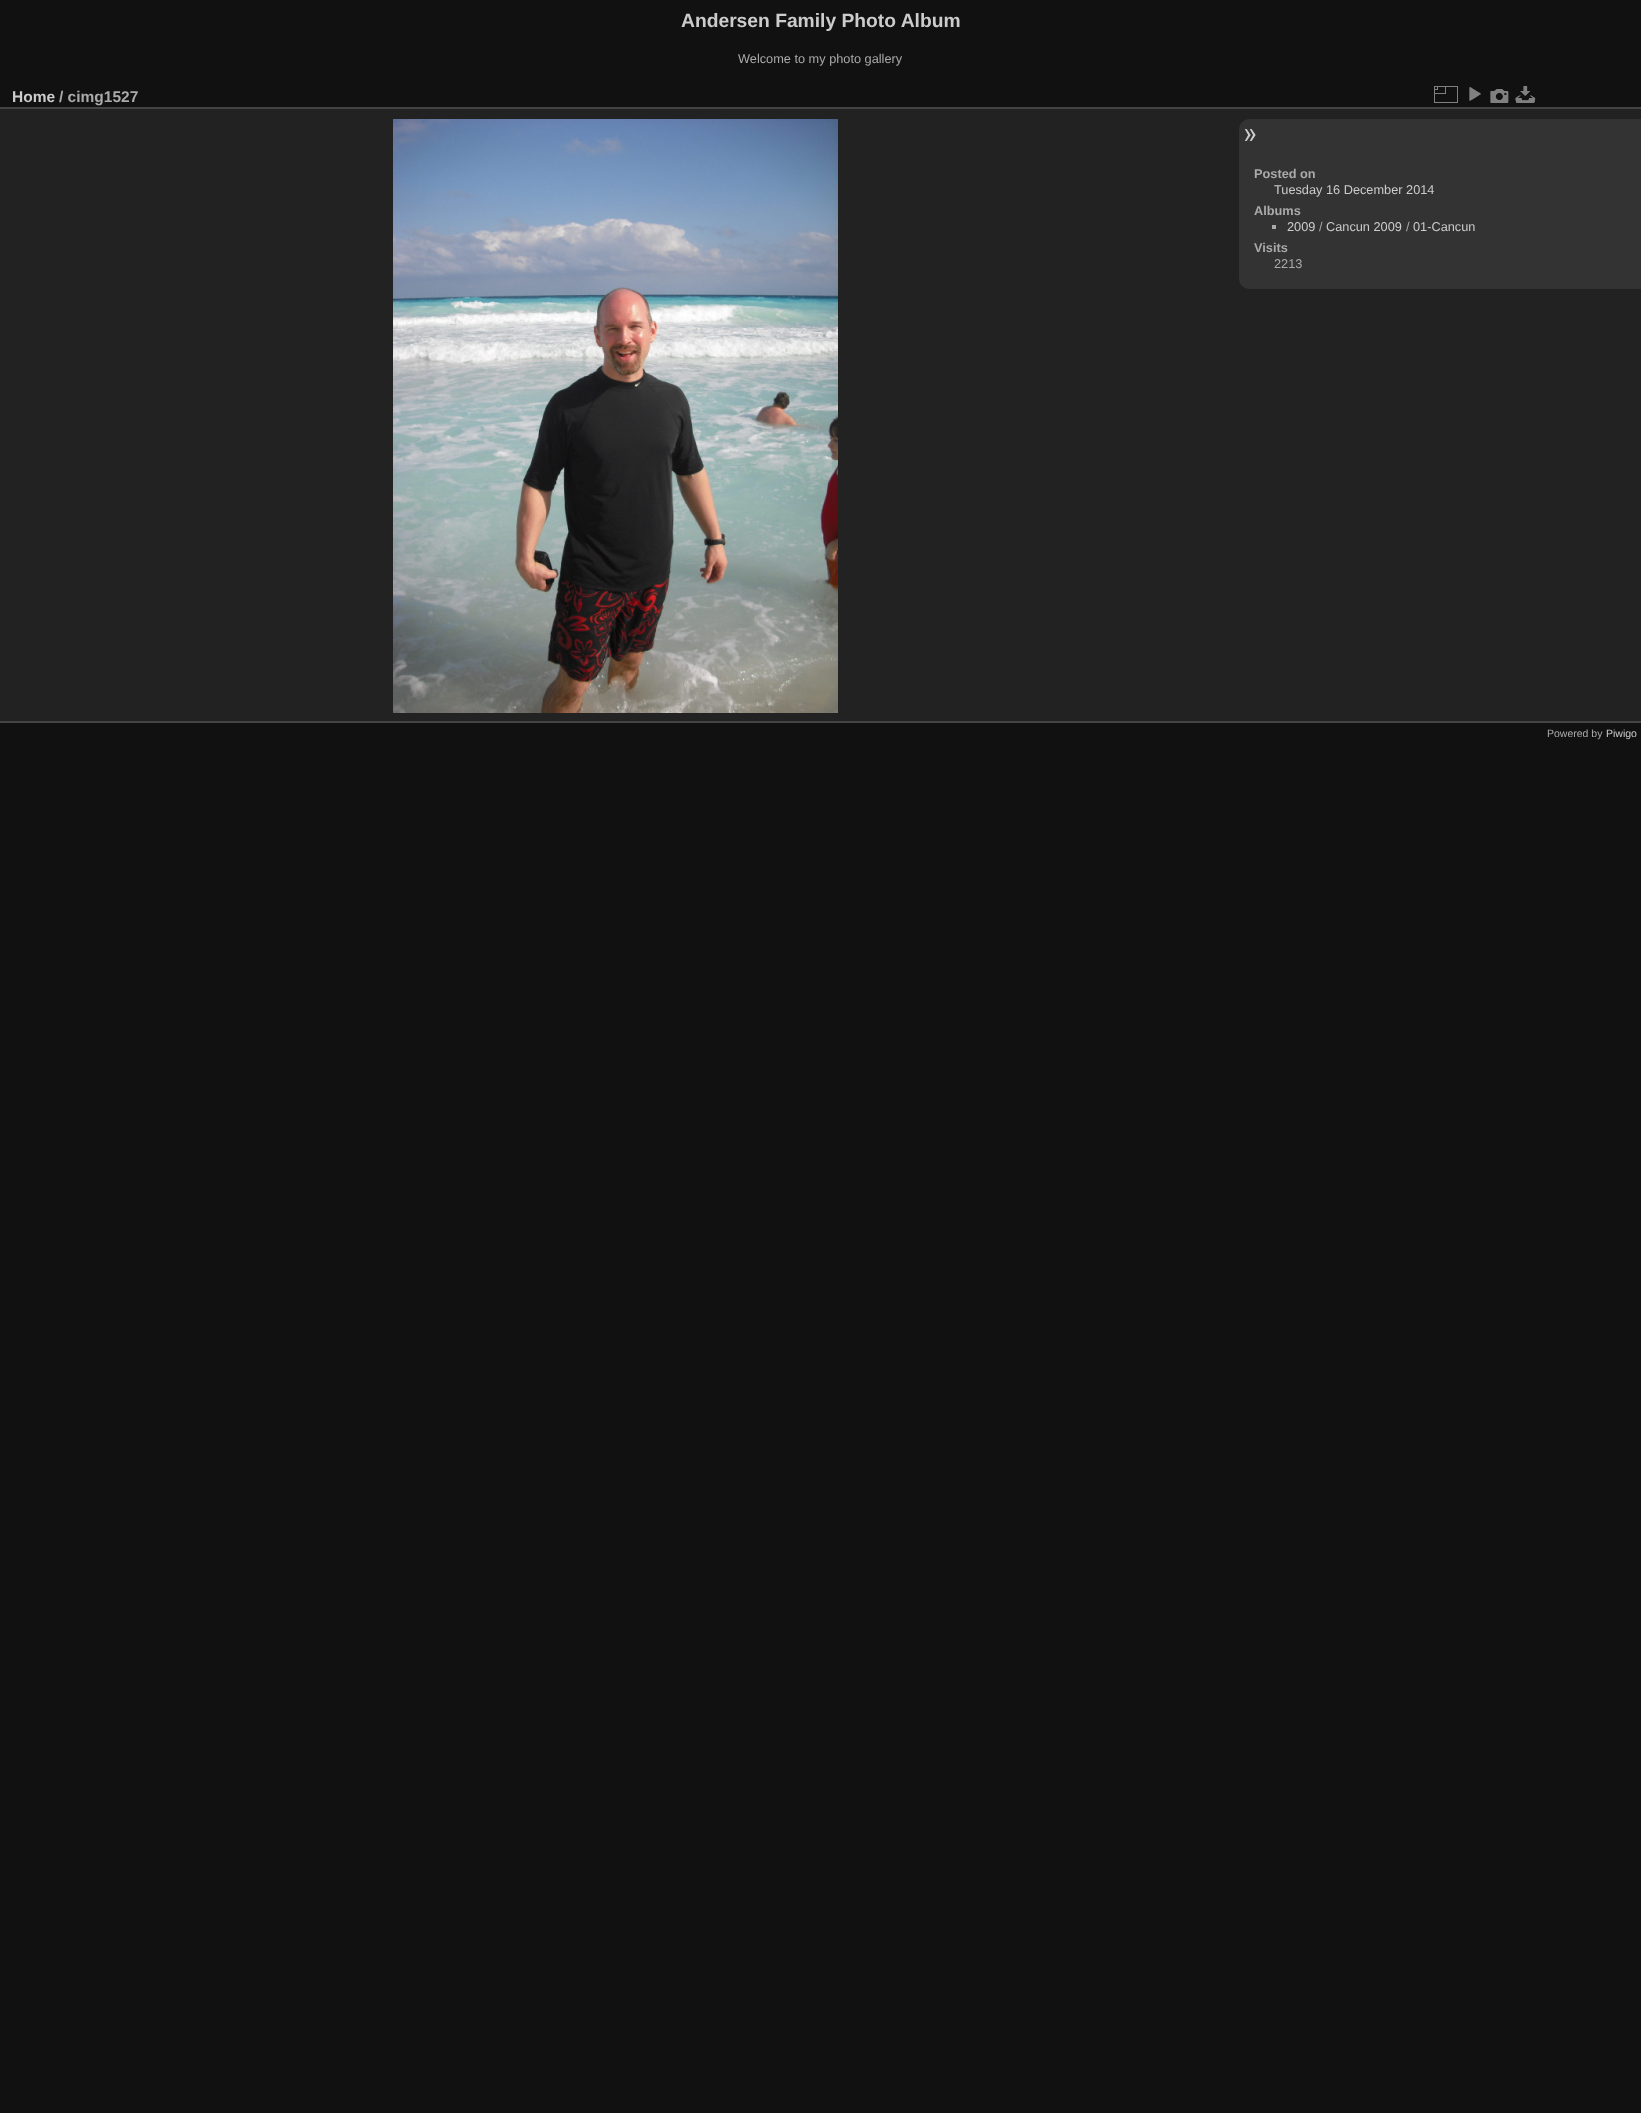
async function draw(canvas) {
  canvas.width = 1641
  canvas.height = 2113
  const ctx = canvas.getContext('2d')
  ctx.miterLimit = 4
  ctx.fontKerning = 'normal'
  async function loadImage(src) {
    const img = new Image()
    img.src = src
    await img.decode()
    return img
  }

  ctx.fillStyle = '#111'
  ctx.fillRect(0, 0, 1641, 2113)
  ctx.font = 'bold 19.25px Liberation Sans'
  ctx.fillStyle = '#ccc'
  ctx.fillText('Andersen Family Photo Album', 681, 27)
  ctx.font = '12.75px Liberation Sans'
  ctx.fillStyle = '#aaa'
  ctx.fillText('Welcome to my photo gallery', 738, 63)
  ctx.fillStyle = '#222'
  ctx.fillRect(0, 109, 1641, 612)
  ctx.fillStyle = '#444'
  ctx.fillRect(0, 721, 1641, 2)
  ctx.fillRect(0, 107, 1641, 2)
  ctx.font = 'bold 15.5px Liberation Sans'
  ctx.fillStyle = '#ccc'
  ctx.fillText('Home', 12, 102)
  ctx.fillStyle = '#aaa'
  ctx.fillText('/ cimg1527', 59, 102)
  ctx.drawImage(await loadImage('image0.png'), 1434, 86, 24, 17)
  ctx.drawImage(await loadImage('image1.png'), 1469, 87, 12, 14)
  ctx.drawImage(await loadImage('image2.png'), 1490, 89, 19, 14)
  ctx.drawImage(await loadImage('image3.png'), 1515, 86, 21, 17)
  ctx.drawImage(await loadImage('image4.png'), 393, 119, 445, 594)
  ctx.fillStyle = '#333'
  ctx.beginPath()
  ctx.roundRect(1239, 119, 402, 170, [10, 0, 0, 10])
  ctx.fill()
  ctx.drawImage(await loadImage('image5.png'), 1244, 129, 12, 12)
  ctx.font = 'bold 12.75px Liberation Sans'
  ctx.fillStyle = '#aaa'
  ctx.fillText('Posted on', 1254, 178)
  ctx.font = '12.75px Liberation Sans'
  ctx.fillStyle = '#ccc'
  ctx.fillText('Tuesday 16 December 2014', 1274, 194)
  ctx.font = 'bold 12.75px Liberation Sans'
  ctx.fillStyle = '#aaa'
  ctx.fillText('Albums', 1254, 215)
  ctx.fillRect(1272, 225, 4, 4)
  ctx.font = '12.75px Liberation Sans'
  ctx.fillStyle = '#ccc'
  ctx.fillText('2009', 1287, 231)
  ctx.fillStyle = '#aaa'
  ctx.fillText('/', 1319, 231)
  ctx.fillStyle = '#ccc'
  ctx.fillText('Cancun 2009', 1326, 231)
  ctx.fillStyle = '#aaa'
  ctx.fillText('/', 1406, 231)
  ctx.fillStyle = '#ccc'
  ctx.fillText('01-Cancun', 1413, 231)
  ctx.font = 'bold 12.75px Liberation Sans'
  ctx.fillStyle = '#aaa'
  ctx.fillText('Visits', 1254, 252)
  ctx.font = '12.75px Liberation Sans'
  ctx.fillText('2213', 1274, 268)
  ctx.font = '10.5px Liberation Sans'
  ctx.fillText('Powered by', 1547, 737)
  ctx.fillStyle = '#ccc'
  ctx.fillText('Piwigo', 1606, 737)
}

draw(document.querySelector('canvas'))
